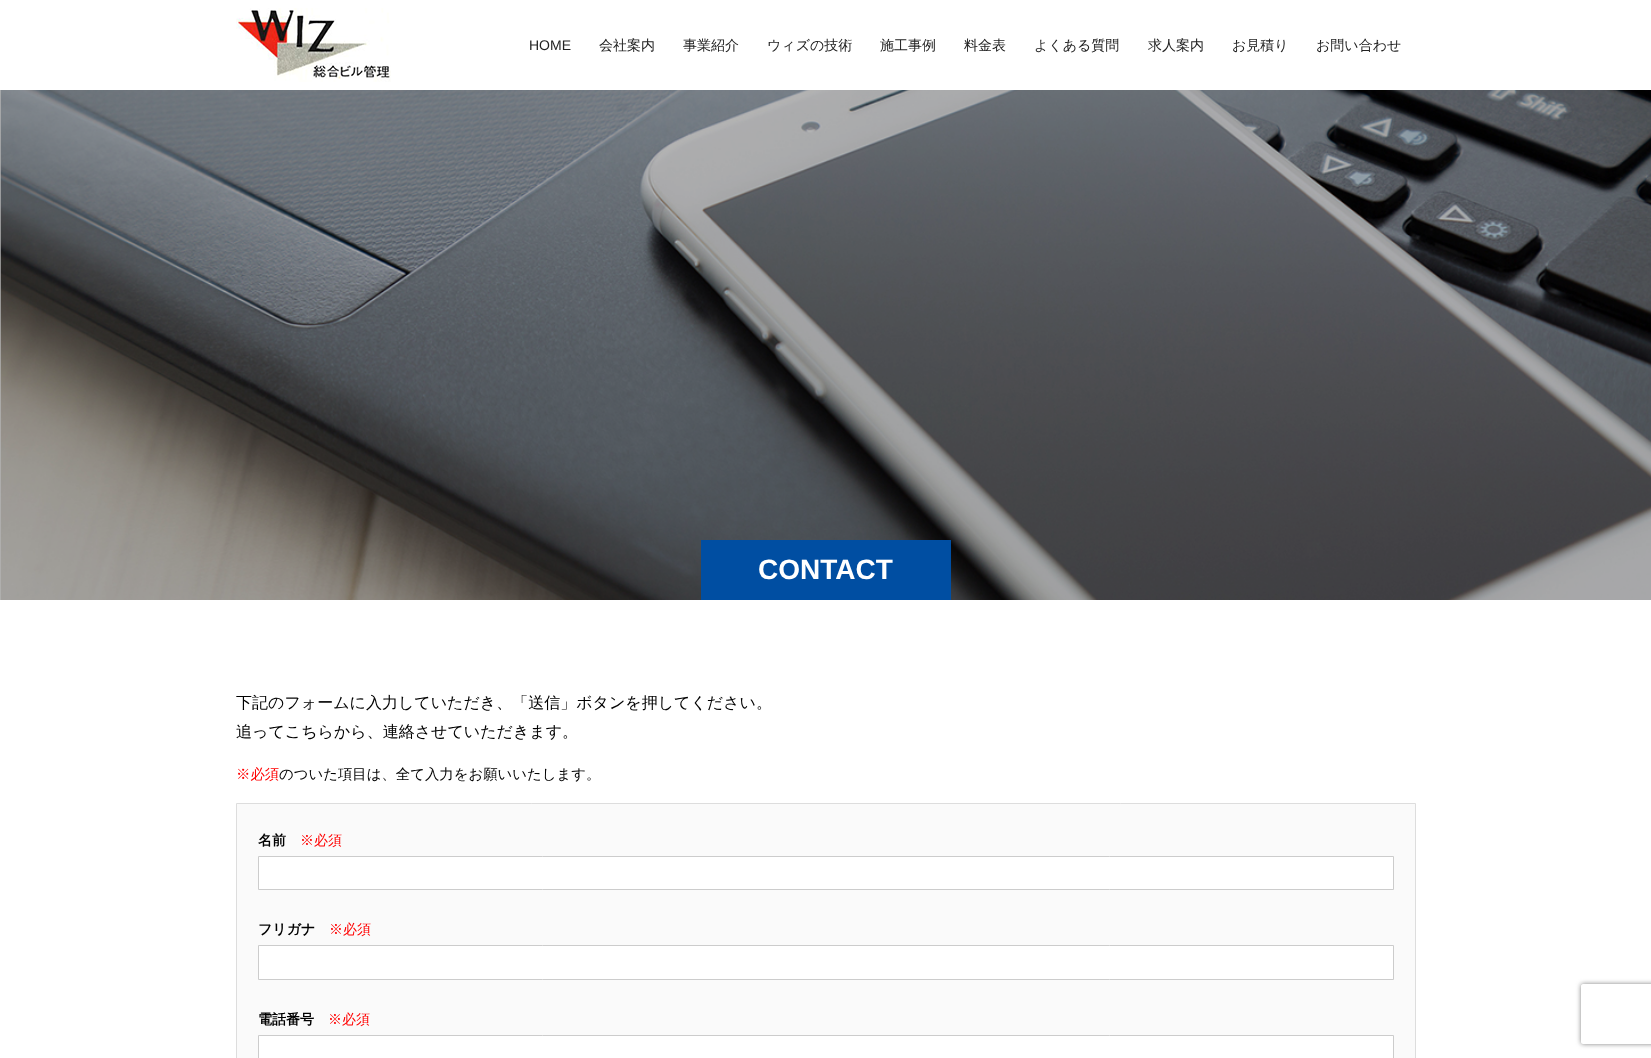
async function draw(canvas) {
  canvas.width = 1651
  canvas.height = 1058
  const ctx = canvas.getContext('2d')
  ctx.miterLimit = 4
  ctx.fontKerning = 'normal'
  async function loadImage(src) {
    const img = new Image()
    img.src = src
    await img.decode()
    return img
  }

  ctx.fillStyle = '#fff'
  ctx.fillRect(0, 0, 1651, 1058)
  ctx.fillStyle = '#b3b3b3'
  ctx.fillRect(0, 90, 1, 510)
  ctx.drawImage(await loadImage('image0.png'), 236, 8, 155, 74)
  ctx.font = '14px Liberation Sans'
  ctx.fillStyle = '#222'
  ctx.fillText('HOME', 529, 50)
  ctx.font = '500 14px WenQuanYi Zen Hei'
  ctx.fillText('会社案内', 599, 50)
  ctx.fillText('事業紹介', 683, 50)
  ctx.fillText('ウィズの技術', 767, 50)
  ctx.fillText('施工事例', 880, 50)
  ctx.fillText('料金表', 964, 50)
  ctx.fillText('よくある質問', 1034, 50)
  ctx.fillText('求人案内', 1148, 50)
  ctx.fillText('お見積り', 1232, 50)
  ctx.fillText('お問い合わせ', 1316, 50)
  ctx.drawImage(await loadImage('image1.png'), 0, 90, 1651, 510)
  ctx.fillStyle = '#004ea2'
  ctx.fillRect(701, 540, 250, 60)
  ctx.font = 'bold 28px Liberation Sans'
  ctx.fillStyle = '#fff'
  ctx.fillText('CONTACT', 758, 579)
  ctx.font = '500 16px WenQuanYi Zen Hei'
  ctx.fillStyle = '#000'
  ctx.fillText('下記のフォームに入力していただき、「送信」ボタンを押してください。', 236, 708)
  ctx.fillText('追ってこちらから、連絡させていただきます。', 236, 737)
  ctx.font = '500 14.4px WenQuanYi Zen Hei'
  ctx.fillStyle = '#f00'
  ctx.fillText('※必須', 236, 779)
  ctx.fillStyle = '#000'
  ctx.fillText('のついた項目は、全て入力をお願いいたします。', 279, 779)
  ctx.fillStyle = '#fafafa'
  ctx.beginPath()
  ctx.rect(236.5, 803.5, 1179, 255)
  ctx.fill()
  ctx.strokeStyle = '#ddd'
  ctx.stroke()
  ctx.font = 'bold 14px WenQuanYi Zen Hei'
  ctx.fillStyle = '#000'
  ctx.fillText('名前', 258, 845)
  ctx.font = '500 14px WenQuanYi Zen Hei'
  ctx.fillStyle = '#f00'
  ctx.fillText('※必須', 300, 845)
  ctx.fillStyle = '#fff'
  ctx.beginPath()
  ctx.rect(258.5, 856.5, 1135, 33)
  ctx.fill()
  ctx.strokeStyle = '#ccc'
  ctx.stroke()
  ctx.font = 'bold 14px WenQuanYi Zen Hei'
  ctx.fillStyle = '#000'
  ctx.fillText('フリガナ', 258, 934)
  ctx.font = '500 14px WenQuanYi Zen Hei'
  ctx.fillStyle = '#f00'
  ctx.fillText('※必須', 329, 934)
  ctx.fillStyle = '#fff'
  ctx.beginPath()
  ctx.rect(258.5, 945.5, 1135, 34)
  ctx.fill()
  ctx.stroke()
  ctx.font = 'bold 14px WenQuanYi Zen Hei'
  ctx.fillStyle = '#000'
  ctx.fillText('電話番号', 258, 1024)
  ctx.font = '500 14px WenQuanYi Zen Hei'
  ctx.fillStyle = '#f00'
  ctx.fillText('※必須', 328, 1024)
  ctx.fillStyle = '#fff'
  ctx.beginPath()
  ctx.rect(258.5, 1035.5, 1135, 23)
  ctx.fill()
  ctx.stroke()
  ctx.save()
  ctx.beginPath()
  ctx.moveTo(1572, 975)
  ctx.lineTo(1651, 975)
  ctx.lineTo(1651, 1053)
  ctx.lineTo(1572, 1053)
  ctx.closePath()
  ctx.moveTo(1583, 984)
  ctx.lineTo(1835, 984)
  ctx.bezierCurveTo(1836, 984, 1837, 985, 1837, 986)
  ctx.lineTo(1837, 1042)
  ctx.bezierCurveTo(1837, 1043, 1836, 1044, 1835, 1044)
  ctx.lineTo(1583, 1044)
  ctx.bezierCurveTo(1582, 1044, 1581, 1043, 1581, 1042)
  ctx.lineTo(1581, 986)
  ctx.bezierCurveTo(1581, 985, 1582, 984, 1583, 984)
  ctx.closePath()
  ctx.clip('evenodd')
  ctx.fillStyle = '#808080'
  ctx.filter = 'blur(2.5px)'
  ctx.beginPath()
  ctx.roundRect(1581, 984, 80, 60, 2)
  ctx.fill()
  ctx.filter = 'none'
  ctx.restore()
}

draw(document.querySelector('canvas'))
